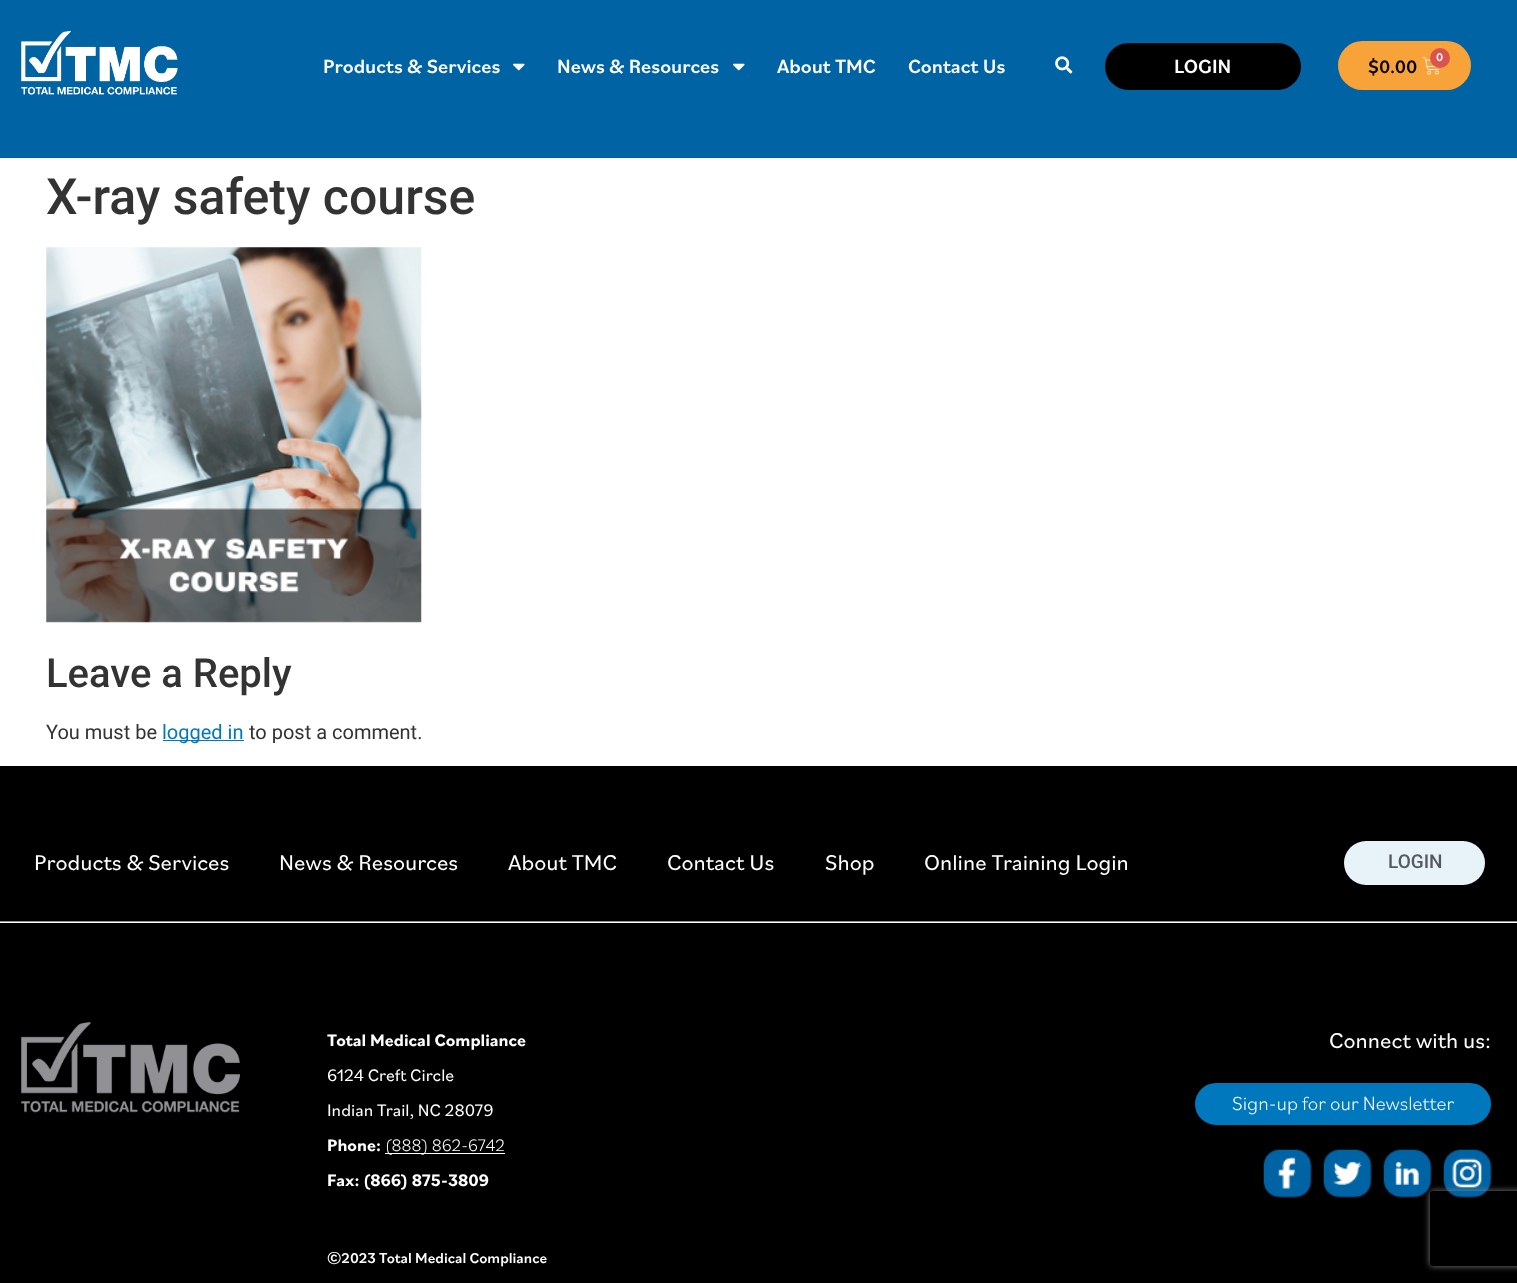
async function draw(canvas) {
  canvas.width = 1517
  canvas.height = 1283
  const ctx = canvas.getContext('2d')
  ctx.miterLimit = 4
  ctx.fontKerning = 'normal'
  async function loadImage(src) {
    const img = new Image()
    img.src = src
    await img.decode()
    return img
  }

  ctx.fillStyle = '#fff'
  ctx.fillRect(0, 0, 1517, 1283)
  ctx.fillStyle = '#0063a4'
  ctx.fillRect(0, 0, 1517, 158)
  ctx.drawImage(await loadImage('image0.png'), 21, 31, 157, 64)
  ctx.font = '500 20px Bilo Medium'
  ctx.fillStyle = '#fff'
  ctx.fillText('Products & Services', 323, 73)
  ctx.drawImage(await loadImage('image1.png'), 513, 63, 12, 8)
  ctx.fillText('News & Resources', 557, 73)
  ctx.drawImage(await loadImage('image1.png'), 733, 63, 12, 8)
  ctx.fillText('About TMC', 777, 73)
  ctx.fillText('Contact Us', 908, 73)
  ctx.drawImage(await loadImage('image2.png'), 1055, 56, 18, 18)
  ctx.fillStyle = '#000'
  ctx.beginPath()
  ctx.roundRect(1105, 43, 196, 47, 23.5)
  ctx.fill()
  ctx.fillStyle = '#fff'
  ctx.fillText('LOGIN', 1174, 73)
  ctx.fillStyle = '#f8a23a'
  ctx.beginPath()
  ctx.roundRect(1338, 41, 133, 49, 24.5)
  ctx.fill()
  ctx.drawImage(await loadImage('image3.png'), 1422, 57, 17, 18)
  ctx.fillStyle = '#d9534f'
  ctx.beginPath()
  ctx.arc(1440, 58, 10, 0, 2 * Math.PI)
  ctx.fill()
  ctx.font = '500 12px Bilo Medium'
  ctx.fillStyle = '#fff'
  ctx.fillText('0', 1436, 61)
  ctx.font = '500 19px Bilo Medium'
  ctx.fillStyle = '#000'
  ctx.fillText('$0.00', 1368, 73)
  ctx.font = '500 50px Roboto'
  ctx.fillStyle = '#333'
  ctx.fillText('X-ray safety course', 46, 214)
  ctx.drawImage(await loadImage('image4.png'), 46, 247, 376, 376)
  ctx.font = '500 40px Roboto'
  ctx.fillText('Leave a Reply', 46, 687)
  ctx.font = '20px Roboto'
  ctx.fillText('You must be', 46, 739)
  ctx.fillStyle = '#0078bd'
  ctx.fillRect(163, 740, 81, 1)
  ctx.fillText('logged in', 162, 739)
  ctx.fillStyle = '#333'
  ctx.fillText('to post a comment.', 249, 739)
  ctx.fillStyle = '#000'
  ctx.fillRect(0, 766, 1517, 155)
  ctx.fillStyle = '#919195'
  ctx.fillRect(0, 921, 1517, 1)
  ctx.font = '22.5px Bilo'
  ctx.fillStyle = '#fff'
  ctx.fillText('Products & Services', 34, 870)
  ctx.fillText('News & Resources', 279, 870)
  ctx.fillText('About TMC', 508, 870)
  ctx.fillText('Contact Us', 667, 870)
  ctx.fillText('Shop', 825, 870)
  ctx.fillText('Online Training Login', 924, 870)
  ctx.fillStyle = '#e8f3f9'
  ctx.beginPath()
  ctx.roundRect(1344, 841, 141, 44, 22)
  ctx.fill()
  ctx.font = '500 19px Roboto'
  ctx.fillStyle = '#54595f'
  ctx.fillText('LOGIN', 1388, 868)
  ctx.fillStyle = '#000'
  ctx.fillRect(0, 923, 1517, 360)
  ctx.drawImage(await loadImage('image5.png'), 21, 1022, 219, 91)
  ctx.font = 'bold 17.5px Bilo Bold'
  ctx.fillStyle = '#fff'
  ctx.fillText('Total Medical Compliance', 327, 1046)
  ctx.font = '17.5px Bilo'
  ctx.fillText('6124 Creft Circle', 327, 1081)
  ctx.fillText('Indian Trail, NC 28079', 327, 1116)
  ctx.font = 'bold 17.5px Bilo Bold'
  ctx.fillText('Phone:', 327, 1151)
  ctx.fillRect(385, 1153, 120, 1)
  ctx.font = '300 17.5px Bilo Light'
  ctx.fillText('(888) 862-6742', 385, 1151)
  ctx.font = 'bold 17.5px Bilo Bold'
  ctx.fillText('Fax: (866) 875-3809', 327, 1186)
  ctx.font = '500 15px Bilo Medium'
  ctx.fillText('©2023 Total Medical Compliance', 327, 1263)
  ctx.font = '22.5px Bilo'
  ctx.fillText('Connect with us:', 1329, 1048)
  ctx.fillStyle = '#0078bd'
  ctx.beginPath()
  ctx.roundRect(1197, 1085, 292, 38, 19)
  ctx.fill()
  ctx.strokeStyle = '#0078bd'
  ctx.lineWidth = 4
  ctx.stroke()
  ctx.font = '300 20px Bilo Light'
  ctx.fillStyle = '#fff'
  ctx.fillText('Sign-up for our Newsletter', 1232, 1110)
  ctx.drawImage(await loadImage('image6.png'), 1263, 1149, 49, 49)
  ctx.drawImage(await loadImage('image7.png'), 1323, 1149, 49, 49)
  ctx.drawImage(await loadImage('image8.png'), 1383, 1149, 49, 49)
  ctx.drawImage(await loadImage('image9.png'), 1443, 1149, 49, 49)
  ctx.save()
  ctx.beginPath()
  ctx.moveTo(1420, 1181)
  ctx.lineTo(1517, 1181)
  ctx.lineTo(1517, 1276)
  ctx.lineTo(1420, 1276)
  ctx.closePath()
  ctx.moveTo(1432.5, 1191)
  ctx.lineTo(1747.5, 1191)
  ctx.bezierCurveTo(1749, 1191, 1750, 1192, 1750, 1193.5)
  ctx.lineTo(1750, 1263.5)
  ctx.bezierCurveTo(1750, 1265, 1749, 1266, 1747.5, 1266)
  ctx.lineTo(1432.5, 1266)
  ctx.bezierCurveTo(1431, 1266, 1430, 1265, 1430, 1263.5)
  ctx.lineTo(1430, 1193.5)
  ctx.bezierCurveTo(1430, 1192, 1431, 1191, 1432.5, 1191)
  ctx.closePath()
  ctx.clip('evenodd')
  ctx.fillStyle = '#808080'
  ctx.filter = 'blur(3px)'
  ctx.beginPath()
  ctx.roundRect(1430, 1191, 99, 75, 2.5)
  ctx.fill()
  ctx.filter = 'none'
  ctx.restore()
}

draw(document.querySelector('canvas'))
